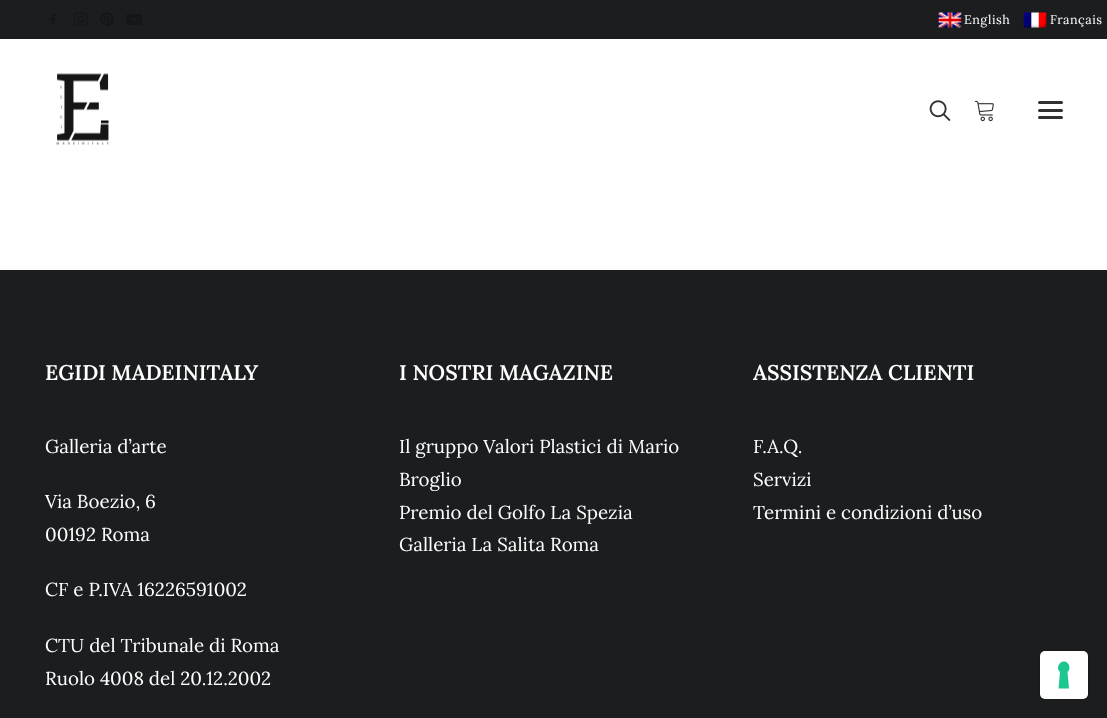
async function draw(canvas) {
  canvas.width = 1107
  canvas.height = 718
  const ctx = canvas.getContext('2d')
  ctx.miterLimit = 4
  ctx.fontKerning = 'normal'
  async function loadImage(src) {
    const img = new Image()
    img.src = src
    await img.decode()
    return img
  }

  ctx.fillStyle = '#fff'
  ctx.fillRect(0, 0, 1107, 718)
  ctx.fillStyle = '#1b1d1f'
  ctx.fillRect(0, 0, 1107, 39)
  ctx.drawImage(await loadImage('image0.png'), 50, 14, 6, 11)
  ctx.drawImage(await loadImage('image1.png'), 74, 12, 14, 14)
  ctx.drawImage(await loadImage('image2.png'), 100, 12, 14, 14)
  ctx.drawImage(await loadImage('image3.png'), 126, 14, 16, 11)
  ctx.drawImage(await loadImage('image4.png'), 938, 12, 24, 16)
  ctx.letterSpacing = '0.5px'
  ctx.font = '12.5px Lora'
  ctx.fillStyle = '#fff'
  ctx.fillText('English', 964, 24)
  ctx.drawImage(await loadImage('image5.png'), 1023, 12, 24, 16)
  ctx.fillText('Français', 1050, 24)
  ctx.drawImage(await loadImage('image6.png'), 56, 73, 53, 72)
  ctx.drawImage(await loadImage('image7.png'), 929, 100, 22, 21)
  ctx.drawImage(await loadImage('image8.png'), 974, 100, 20, 22)
  ctx.fillStyle = '#303133'
  ctx.beginPath()
  ctx.roundRect(1038, 109, 25, 3, 1.5)
  ctx.fill()
  ctx.beginPath()
  ctx.roundRect(1038, 101, 25, 3, 1.5)
  ctx.fill()
  ctx.beginPath()
  ctx.roundRect(1038, 116, 25, 3, 1.5)
  ctx.fill()
  ctx.fillStyle = '#1b1d1f'
  ctx.fillRect(0, 270, 1107, 448)
  ctx.letterSpacing = '0px'
  ctx.font = '600 21.25px Lora'
  ctx.fillStyle = '#fff'
  ctx.fillText('EGIDI MADEINITALY', 45, 380)
  ctx.font = '18.75px Lora'
  ctx.fillText('Galleria d’arte', 45, 453)
  ctx.fillText('Via Boezio, 6', 45, 508)
  ctx.fillText('00192 Roma', 45, 541)
  ctx.fillText('CF e P.IVA 16226591002', 45, 596)
  ctx.fillText('CTU del Tribunale di Roma', 45, 652)
  ctx.fillText('Ruolo 4008 del 20.12.2002', 45, 685)
  ctx.font = '600 21.25px Lora'
  ctx.fillText('I NOSTRI MAGAZINE', 399, 380)
  ctx.font = '18.75px Lora'
  ctx.fillText('Il gruppo Valori Plastici di Mario', 399, 453)
  ctx.fillText('Broglio', 399, 486)
  ctx.fillText('Premio del Golfo La Spezia', 399, 519)
  ctx.fillText('Galleria La Salita Roma', 399, 551)
  ctx.font = '600 21.25px Lora'
  ctx.fillText('ASSISTENZA CLIENTI', 753, 380)
  ctx.font = '18.75px Lora'
  ctx.fillText('F.A.Q.', 753, 453)
  ctx.fillText('Servizi', 753, 486)
  ctx.fillText('Termini e condizioni d’uso', 753, 519)
  ctx.beginPath()
  ctx.roundRect(1039.5, 650.5, 49, 49, 5.5)
  ctx.strokeStyle = '#17191a'
  ctx.stroke()
  ctx.beginPath()
  ctx.roundRect(1040, 651, 48, 48, 5)
  ctx.fill()
  ctx.fillStyle = '#1cc691'
  ctx.beginPath()
  ctx.moveTo(1064, 661.5)
  ctx.bezierCurveTo(1069, 661.5, 1071.5, 668.5, 1067.5, 672)
  ctx.lineTo(1069, 688.5)
  ctx.lineTo(1058.5, 688.5)
  ctx.lineTo(1060, 672)
  ctx.bezierCurveTo(1056, 668.5, 1058.5, 661.5, 1064, 661.5)
  ctx.closePath()
  ctx.fill('evenodd')
}

draw(document.querySelector('canvas'))
